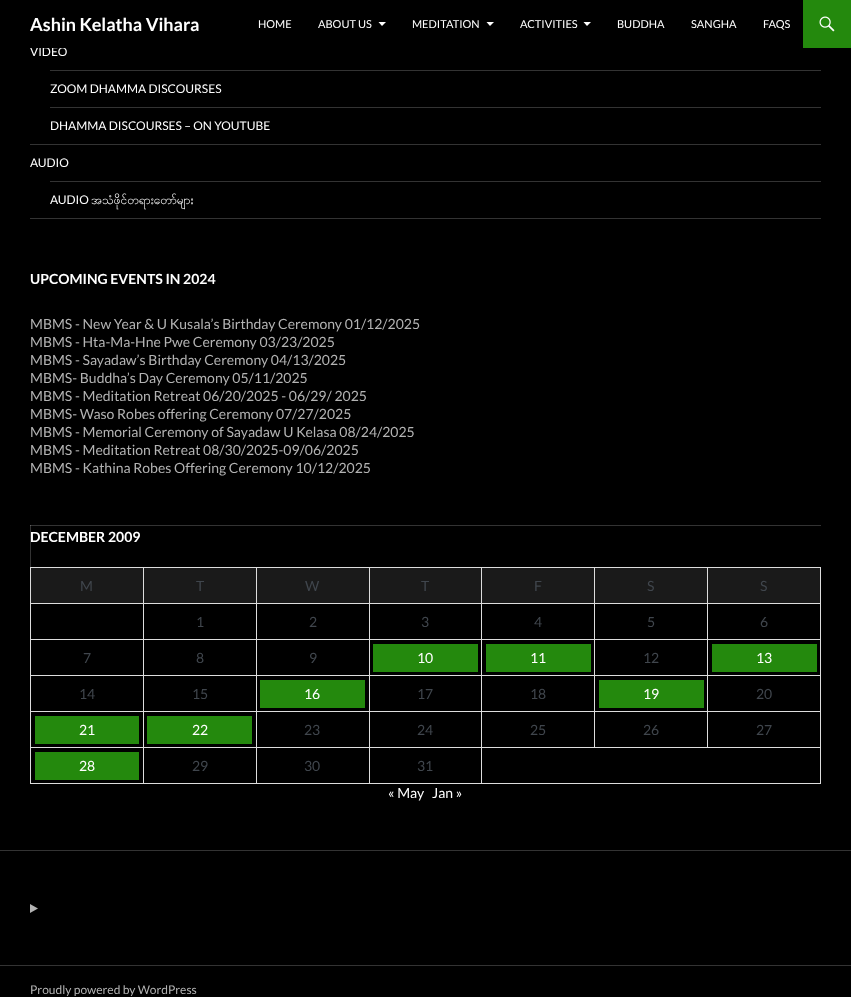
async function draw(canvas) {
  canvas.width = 851
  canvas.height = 997
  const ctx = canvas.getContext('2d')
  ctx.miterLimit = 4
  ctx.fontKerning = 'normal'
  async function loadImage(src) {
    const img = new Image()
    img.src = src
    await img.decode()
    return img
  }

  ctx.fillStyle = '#000'
  ctx.fillRect(0, 0, 851, 997)
  ctx.font = '12px Lato'
  ctx.fillStyle = '#fff'
  ctx.fillText('VIDEO', 30, 56)
  ctx.fillStyle = '#000'
  ctx.fillRect(30, 47, 35, 1)
  ctx.font = 'bold 18px Lato'
  ctx.fillStyle = '#fff'
  ctx.fillText('Ashin Kelatha Vihara', 30, 31)
  ctx.font = '11px Lato'
  ctx.fillText('HOME', 258, 28)
  ctx.fillText('ABOUT US', 318, 28)
  ctx.beginPath()
  ctx.moveTo(378.5, 22)
  ctx.lineTo(386, 22)
  ctx.lineTo(382, 26)
  ctx.closePath()
  ctx.fill()
  ctx.fillText('MEDITATION', 412, 28)
  ctx.beginPath()
  ctx.moveTo(486.5, 22)
  ctx.lineTo(494, 22)
  ctx.lineTo(490, 26)
  ctx.closePath()
  ctx.fill()
  ctx.fillText('ACTIVITIES', 520, 28)
  ctx.beginPath()
  ctx.moveTo(583.5, 22)
  ctx.lineTo(591, 22)
  ctx.lineTo(587, 26)
  ctx.closePath()
  ctx.fill()
  ctx.fillText('BUDDHA', 617, 28)
  ctx.fillText('SANGHA', 691, 28)
  ctx.fillText('FAQS', 763, 28)
  ctx.fillStyle = '#24890d'
  ctx.fillRect(803, 0, 48, 48)
  ctx.drawImage(await loadImage('image0.png'), 819, 16, 16, 16)
  ctx.fillStyle = '#333'
  ctx.fillRect(30, 525, 1, 42)
  ctx.fillRect(0, 850, 851, 1)
  ctx.fillRect(30, 218, 791, 1)
  ctx.fillRect(50, 70, 771, 1)
  ctx.font = '12px Lato'
  ctx.fillStyle = '#fff'
  ctx.fillText('ZOOM DHAMMA DISCOURSES', 50, 93)
  ctx.fillStyle = '#333'
  ctx.fillRect(50, 107, 771, 1)
  ctx.fillStyle = '#fff'
  ctx.fillText('DHAMMA DISCOURSES – ON YOUTUBE', 50, 130)
  ctx.fillStyle = '#333'
  ctx.fillRect(30, 144, 791, 1)
  ctx.fillStyle = '#fff'
  ctx.fillText('AUDIO', 30, 167)
  ctx.fillStyle = '#333'
  ctx.fillRect(50, 181, 771, 1)
  ctx.fillStyle = '#fff'
  ctx.fillText('AUDIO', 50, 204)
  ctx.font = '12px Padauk'
  ctx.fillText('အသံဖိုင်တရားတော်များ', 91, 204)
  ctx.font = 'bold 14px Lato'
  ctx.fillText('UPCOMING EVENTS IN 2024', 30, 284)
  ctx.font = '14px Lato'
  ctx.fillStyle = '#b3b3b3'
  ctx.fillText('MBMS - New Year & U Kusala’s Birthday Ceremony 01/12/2025', 30, 329)
  ctx.fillText('MBMS - Hta-Ma-Hne Pwe Ceremony 03/23/2025', 30, 347)
  ctx.fillText('MBMS - Sayadaw’s Birthday Ceremony 04/13/2025', 30, 365)
  ctx.fillText('MBMS- Buddha’s Day Ceremony 05/11/2025', 30, 383)
  ctx.fillText('MBMS - Meditation Retreat 06/20/2025 - 06/29/ 2025', 30, 401)
  ctx.fillText('MBMS- Waso Robes offering Ceremony 07/27/2025', 30, 419)
  ctx.fillText('MBMS - Memorial Ceremony of Sayadaw U Kelasa 08/24/2025', 30, 437)
  ctx.fillText('MBMS - Meditation Retreat 08/30/2025-09/06/2025', 30, 455)
  ctx.fillText('MBMS - Kathina Robes Offering Ceremony 10/12/2025', 30, 473)
  ctx.fillStyle = '#333'
  ctx.fillRect(30, 525, 791, 1)
  ctx.fillStyle = '#5c5c5c'
  ctx.fillRect(30, 525, 1, 1)
  ctx.font = 'bold 14px Lato'
  ctx.fillStyle = '#fff'
  ctx.fillText('DECEMBER 2009', 30, 542)
  ctx.fillStyle = '#1a1a1a'
  ctx.fillRect(31, 568, 112, 35)
  ctx.fillStyle = '#ddd'
  ctx.fillRect(707, 567, 114, 1)
  ctx.fillRect(707, 603, 114, 1)
  ctx.fillRect(707, 639, 114, 1)
  ctx.fillRect(707, 675, 114, 1)
  ctx.fillRect(707, 711, 114, 1)
  ctx.fillRect(481, 747, 340, 1)
  ctx.fillRect(707, 711, 1, 37)
  ctx.fillRect(594, 711, 114, 1)
  ctx.fillRect(707, 675, 1, 37)
  ctx.fillRect(594, 675, 114, 1)
  ctx.fillRect(707, 639, 1, 37)
  ctx.fillRect(594, 639, 114, 1)
  ctx.fillRect(707, 603, 1, 37)
  ctx.fillRect(594, 603, 114, 1)
  ctx.fillRect(707, 567, 1, 37)
  ctx.fillRect(594, 567, 114, 1)
  ctx.fillRect(594, 711, 1, 37)
  ctx.fillRect(481, 711, 114, 1)
  ctx.fillRect(594, 675, 1, 37)
  ctx.fillRect(481, 675, 114, 1)
  ctx.fillRect(594, 639, 1, 37)
  ctx.fillRect(481, 639, 114, 1)
  ctx.fillRect(594, 603, 1, 37)
  ctx.fillRect(481, 603, 114, 1)
  ctx.fillRect(594, 567, 1, 37)
  ctx.fillRect(481, 567, 114, 1)
  ctx.fillRect(820, 747, 1, 37)
  ctx.fillRect(481, 783, 340, 1)
  ctx.fillRect(481, 747, 1, 37)
  ctx.fillRect(369, 747, 113, 1)
  ctx.fillRect(481, 711, 1, 37)
  ctx.fillRect(369, 711, 113, 1)
  ctx.fillRect(481, 675, 1, 37)
  ctx.fillRect(369, 675, 113, 1)
  ctx.fillRect(481, 639, 1, 37)
  ctx.fillRect(369, 639, 113, 1)
  ctx.fillRect(481, 603, 1, 37)
  ctx.fillRect(369, 603, 113, 1)
  ctx.fillRect(481, 567, 1, 37)
  ctx.fillRect(369, 567, 113, 1)
  ctx.fillRect(369, 783, 113, 1)
  ctx.fillRect(369, 747, 1, 37)
  ctx.fillRect(256, 747, 114, 1)
  ctx.fillRect(369, 711, 1, 37)
  ctx.fillRect(256, 711, 114, 1)
  ctx.fillRect(369, 675, 1, 37)
  ctx.fillRect(256, 675, 114, 1)
  ctx.fillRect(369, 639, 1, 37)
  ctx.fillRect(256, 639, 114, 1)
  ctx.fillRect(369, 603, 1, 37)
  ctx.fillRect(256, 603, 114, 1)
  ctx.fillRect(369, 567, 1, 37)
  ctx.fillRect(256, 567, 114, 1)
  ctx.fillRect(256, 783, 114, 1)
  ctx.fillRect(256, 747, 1, 37)
  ctx.fillRect(143, 747, 114, 1)
  ctx.fillRect(256, 711, 1, 37)
  ctx.fillRect(143, 711, 114, 1)
  ctx.fillRect(256, 675, 1, 37)
  ctx.fillRect(143, 675, 114, 1)
  ctx.fillRect(256, 639, 1, 37)
  ctx.fillRect(143, 639, 114, 1)
  ctx.fillRect(256, 603, 1, 37)
  ctx.fillRect(143, 603, 114, 1)
  ctx.fillRect(256, 567, 1, 37)
  ctx.fillRect(143, 567, 114, 1)
  ctx.fillRect(143, 783, 114, 1)
  ctx.fillRect(143, 747, 1, 37)
  ctx.fillRect(30, 747, 114, 1)
  ctx.fillRect(143, 711, 1, 37)
  ctx.fillRect(30, 711, 114, 1)
  ctx.fillRect(143, 675, 1, 37)
  ctx.fillRect(30, 675, 114, 1)
  ctx.fillRect(143, 639, 1, 37)
  ctx.fillRect(30, 639, 114, 1)
  ctx.fillRect(143, 603, 1, 37)
  ctx.fillRect(30, 603, 114, 1)
  ctx.fillRect(143, 567, 1, 37)
  ctx.fillRect(30, 567, 114, 1)
  ctx.fillRect(30, 783, 114, 1)
  ctx.fillRect(30, 747, 1, 37)
  ctx.fillRect(30, 711, 1, 37)
  ctx.fillRect(30, 675, 1, 37)
  ctx.fillRect(30, 639, 1, 37)
  ctx.fillRect(30, 603, 1, 37)
  ctx.fillRect(30, 567, 1, 37)
  ctx.font = '14px Lato'
  ctx.fillStyle = '#40464d'
  ctx.fillText('M', 80, 591)
  ctx.fillStyle = '#1a1a1a'
  ctx.fillRect(144, 568, 112, 35)
  ctx.fillStyle = '#40464d'
  ctx.fillText('T', 196, 591)
  ctx.fillStyle = '#1a1a1a'
  ctx.fillRect(257, 568, 112, 35)
  ctx.fillStyle = '#40464d'
  ctx.fillText('W', 305, 591)
  ctx.fillStyle = '#1a1a1a'
  ctx.fillRect(370, 568, 111, 35)
  ctx.fillStyle = '#40464d'
  ctx.fillText('T', 421, 591)
  ctx.fillStyle = '#1a1a1a'
  ctx.fillRect(482, 568, 112, 35)
  ctx.fillStyle = '#40464d'
  ctx.fillText('F', 534, 591)
  ctx.fillStyle = '#1a1a1a'
  ctx.fillRect(595, 568, 112, 35)
  ctx.fillStyle = '#40464d'
  ctx.fillText('S', 647, 591)
  ctx.fillStyle = '#1a1a1a'
  ctx.fillRect(708, 568, 112, 35)
  ctx.fillStyle = '#ddd'
  ctx.fillRect(820, 711, 1, 37)
  ctx.fillRect(820, 675, 1, 37)
  ctx.fillRect(820, 639, 1, 37)
  ctx.fillRect(820, 603, 1, 37)
  ctx.fillRect(820, 567, 1, 37)
  ctx.fillStyle = '#40464d'
  ctx.fillText('S', 760, 591)
  ctx.fillText('1', 196, 627)
  ctx.fillText('2', 309, 627)
  ctx.fillText('3', 421, 627)
  ctx.fillText('4', 534, 627)
  ctx.fillText('5', 647, 627)
  ctx.fillText('6', 760, 627)
  ctx.fillText('7', 83, 663)
  ctx.fillText('8', 196, 663)
  ctx.fillText('9', 309, 663)
  ctx.fillStyle = '#24890d'
  ctx.fillRect(373, 644, 105, 28)
  ctx.fillStyle = '#fff'
  ctx.fillText('10', 417, 663)
  ctx.fillStyle = '#24890d'
  ctx.fillRect(486, 644, 105, 28)
  ctx.fillStyle = '#fff'
  ctx.fillText('11', 530, 663)
  ctx.fillStyle = '#40464d'
  ctx.fillText('12', 643, 663)
  ctx.fillStyle = '#24890d'
  ctx.fillRect(712, 644, 105, 28)
  ctx.fillStyle = '#fff'
  ctx.fillText('13', 756, 663)
  ctx.fillStyle = '#40464d'
  ctx.fillText('14', 79, 699)
  ctx.fillText('15', 192, 699)
  ctx.fillStyle = '#24890d'
  ctx.fillRect(260, 680, 105, 28)
  ctx.fillStyle = '#fff'
  ctx.fillText('16', 304, 699)
  ctx.fillStyle = '#40464d'
  ctx.fillText('17', 417, 699)
  ctx.fillText('18', 530, 699)
  ctx.fillStyle = '#24890d'
  ctx.fillRect(599, 680, 105, 28)
  ctx.fillStyle = '#fff'
  ctx.fillText('19', 643, 699)
  ctx.fillStyle = '#40464d'
  ctx.fillText('20', 756, 699)
  ctx.fillStyle = '#24890d'
  ctx.fillRect(35, 716, 104, 28)
  ctx.fillStyle = '#fff'
  ctx.fillText('21', 79, 735)
  ctx.fillStyle = '#24890d'
  ctx.fillRect(147, 716, 105, 28)
  ctx.fillStyle = '#fff'
  ctx.fillText('22', 192, 735)
  ctx.fillStyle = '#40464d'
  ctx.fillText('23', 304, 735)
  ctx.fillText('24', 417, 735)
  ctx.fillText('25', 530, 735)
  ctx.fillText('26', 643, 735)
  ctx.fillText('27', 756, 735)
  ctx.fillStyle = '#24890d'
  ctx.fillRect(35, 752, 104, 28)
  ctx.fillStyle = '#fff'
  ctx.fillText('28', 79, 771)
  ctx.fillStyle = '#40464d'
  ctx.fillText('29', 192, 771)
  ctx.fillText('30', 304, 771)
  ctx.fillText('31', 417, 771)
  ctx.fillStyle = '#fff'
  ctx.fillText('« May', 388, 798)
  ctx.fillText('Jan »', 432, 798)
  ctx.fillStyle = '#b3b3b3'
  ctx.beginPath()
  ctx.moveTo(30, 904)
  ctx.lineTo(38, 908.5)
  ctx.lineTo(30, 913)
  ctx.closePath()
  ctx.fill()
  ctx.fillStyle = '#333'
  ctx.fillRect(0, 965, 851, 1)
  ctx.font = '12px Lato'
  ctx.fillStyle = '#b3b3b3'
  ctx.fillText('Proudly powered by WordPress', 30, 994)
}

draw(document.querySelector('canvas'))
